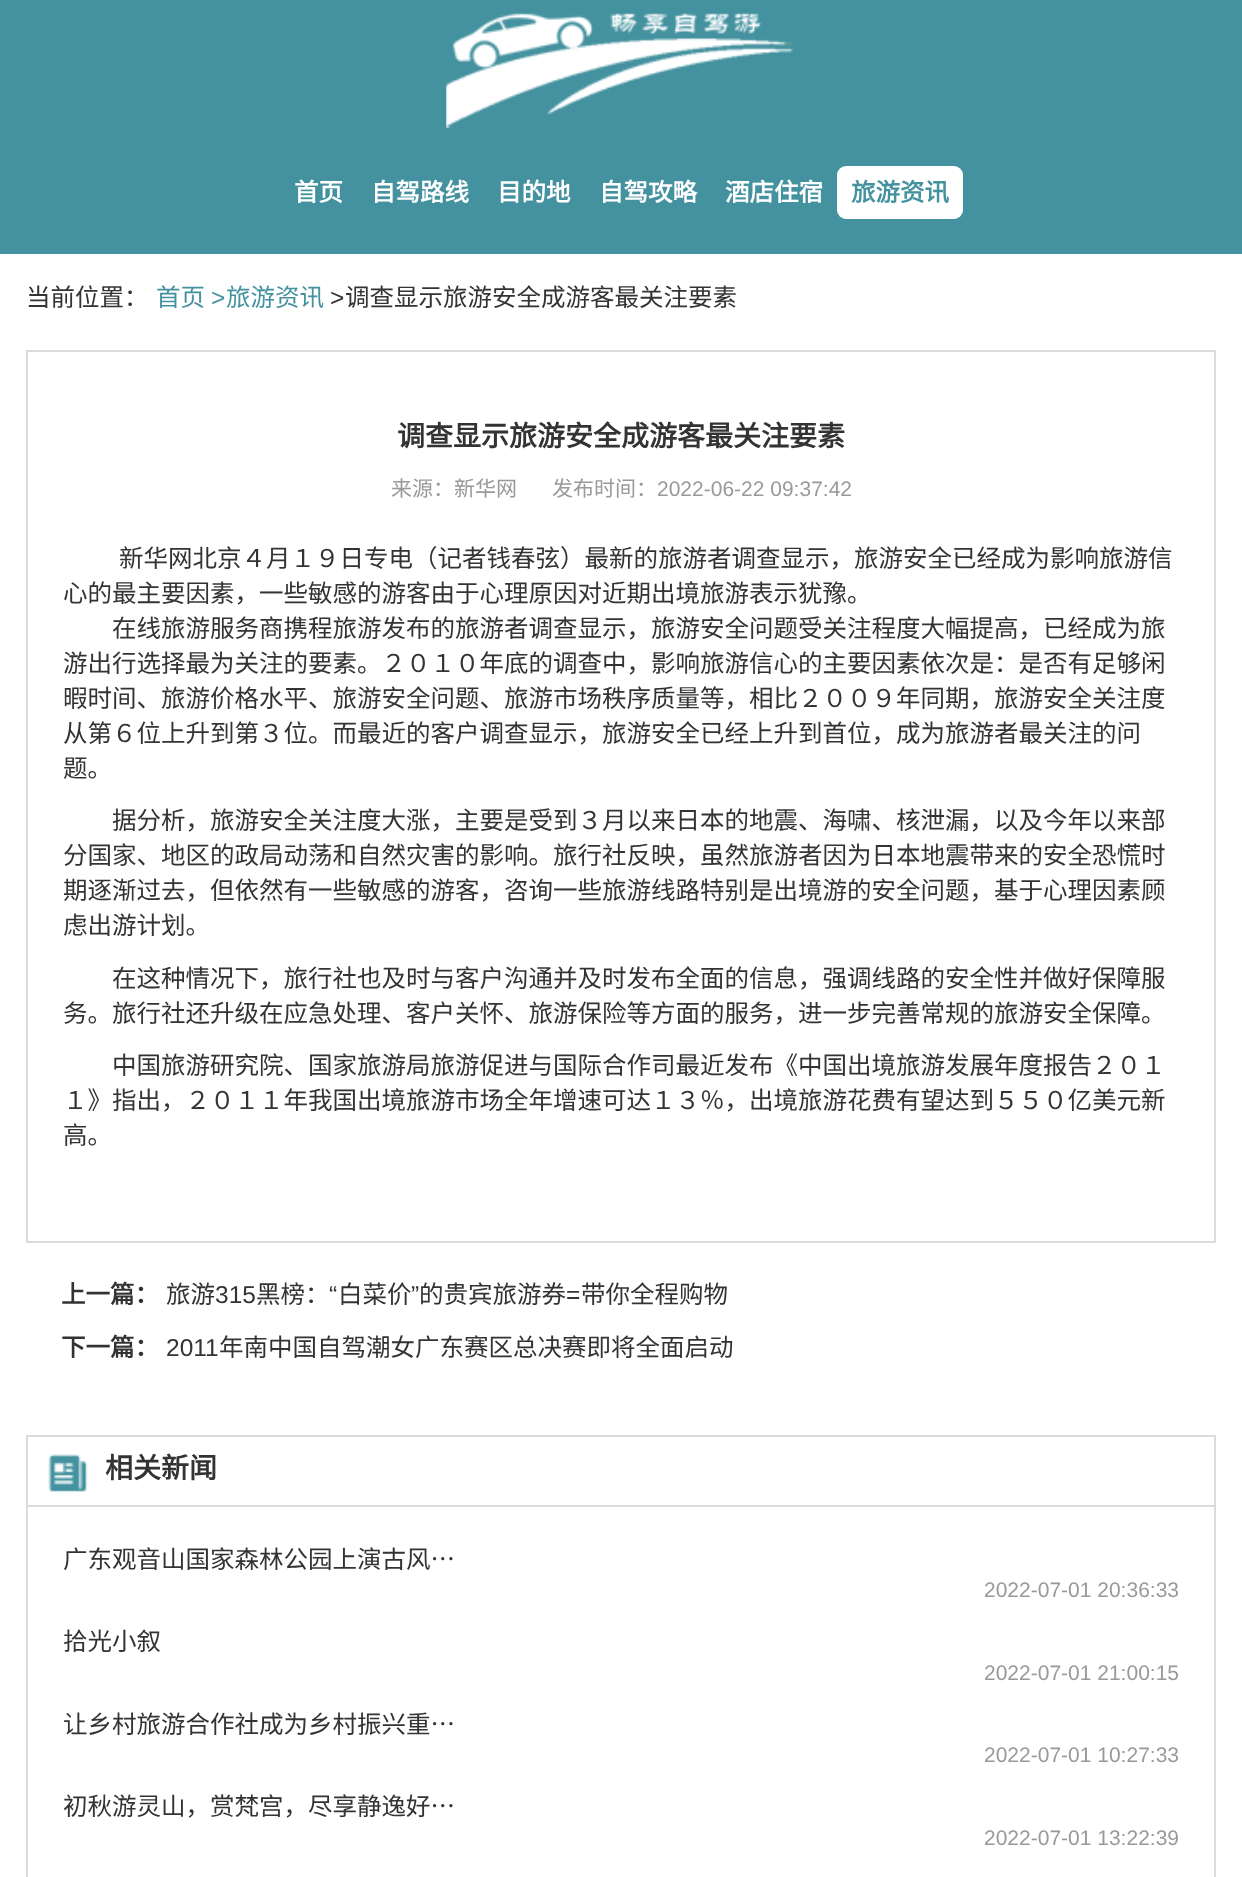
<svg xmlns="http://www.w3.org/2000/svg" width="1242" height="1877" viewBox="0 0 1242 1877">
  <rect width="100%" height="100%" fill="rgb(255,255,255)"/>
  <rect x="0" y="0" width="1242" height="254" fill="rgb(68,146,159)"/>
  <image x="446" y="13" width="348" height="116" href="pic1.png"/>
  <g font-family="Noto Sans CJK SC" font-size="24.5" font-weight="bold" fill="rgb(255,255,255)">
    <text x="294" y="201">首页</text>
    <text x="371" y="201">自驾路线</text>
    <text x="497" y="201">目的地</text>
    <text x="599" y="201">自驾攻略</text>
    <text x="725" y="201">酒店住宿</text>
  </g>
  <rect x="837" y="166" width="126" height="53" rx="9" fill="rgb(255,255,255)"/>
  <text x="851" y="201" font-family="Noto Sans CJK SC" font-size="24.5" font-weight="bold" fill="rgb(68,146,159)">旅游资讯</text>
  <text x="26" y="306" font-family="Noto Sans CJK SC" font-size="24.5" fill="rgb(51,51,51)">当前位置：</text>
  <text x="156" y="306" font-family="Noto Sans CJK SC" font-size="24.5" fill="rgb(68,146,159)">首页</text>
  <text x="211" y="306" font-family="Liberation Sans" font-size="24.5" fill="rgb(68,146,159)">&gt;</text>
  <text x="226" y="306" font-family="Noto Sans CJK SC" font-size="24.5" fill="rgb(68,146,159)">旅游资讯</text>
  <text x="330" y="306" font-family="Liberation Sans" font-size="24.5" fill="rgb(51,51,51)">&gt;</text>
  <text x="345" y="306" font-family="Noto Sans CJK SC" font-size="24.5" fill="rgb(51,51,51)">调查显示旅游安全成游客最关注要素</text>
  <rect x="27" y="351" width="1188" height="891" fill="none" stroke="rgb(219,219,219)" stroke-width="2"/>
  <text x="397" y="446" font-family="Noto Sans CJK SC" font-size="28" font-weight="bold" fill="rgb(51,51,51)">调查显示旅游安全成游客最关注要素</text>
  <g font-family="Noto Sans CJK SC" font-size="21" fill="rgb(153,153,153)">
    <text x="391" y="496">来源：新华网</text>
    <text x="552" y="496">发布时间：</text>
  </g>
  <text x="657" y="496" font-family="Liberation Sans" font-size="21" fill="rgb(153,153,153)">2022-06-22 09:37:42</text>
  <g font-family="Noto Sans CJK SC" font-size="24.5" fill="rgb(51,51,51)">
    <text x="119" y="567">新华网北京４月１９日专电（记者钱春弦）最新的旅游者调查显示，旅游安全已经成为影响旅游信</text>
    <text x="63" y="602">心的最主要因素，一些敏感的游客由于心理原因对近期出境旅游表示犹豫。</text>
    <text x="112" y="637">在线旅游服务商携程旅游发布的旅游者调查显示，旅游安全问题受关注程度大幅提高，已经成为旅</text>
    <text>
      <tspan x="63" y="672">游出行选择最为关注的要素。２０１０年底的调查中，影响旅游信心的主要因素依次是：是否有足够闲</tspan>
      <tspan x="63" y="707">暇时间、旅游价格水平、旅游安全问题、旅游市场秩序质量等，相比２００９年同期，旅游安全关注度</tspan>
      <tspan x="63" y="742">从第６位上升到第３位。而最近的客户调查显示，旅游安全已经上升到首位，成为旅游者最关注的问</tspan>
      <tspan x="63" y="777">题。</tspan>
    </text>
    <text x="112" y="829">据分析，旅游安全关注度大涨，主要是受到３月以来日本的地震、海啸、核泄漏，以及今年以来部</text>
    <text>
      <tspan x="63" y="864">分国家、地区的政局动荡和自然灾害的影响。旅行社反映，虽然旅游者因为日本地震带来的安全恐慌时</tspan>
      <tspan x="63" y="899">期逐渐过去，但依然有一些敏感的游客，咨询一些旅游线路特别是出境游的安全问题，基于心理因素顾</tspan>
      <tspan x="63" y="934">虑出游计划。</tspan>
    </text>
    <text x="112" y="987">在这种情况下，旅行社也及时与客户沟通并及时发布全面的信息，强调线路的安全性并做好保障服</text>
    <text x="63" y="1022">务。旅行社还升级在应急处理、客户关怀、旅游保险等方面的服务，进一步完善常规的旅游安全保障。</text>
    <text x="112" y="1074">中国旅游研究院、国家旅游局旅游促进与国际合作司最近发布《中国出境旅游发展年度报告２０１</text>
    <text>
      <tspan x="63" y="1109">１》指出，２０１１年我国出境旅游市场全年增速可达１３％，出境旅游花费有望达到５５０亿美元新</tspan>
      <tspan x="63" y="1144">高。</tspan>
    </text>
  </g>
  <text x="61" y="1303" font-family="Noto Sans CJK SC" font-size="24.5" font-weight="bold" fill="rgb(51,51,51)">上一篇：</text>
  <text x="166" y="1303" font-family="Noto Sans CJK SC" font-size="24.5" fill="rgb(51,51,51)">旅游</text>
  <text x="215" y="1303" font-family="Liberation Sans" font-size="24.5" fill="rgb(51,51,51)">315</text>
  <text x="256" y="1303" font-family="Noto Sans CJK SC" font-size="24.5" fill="rgb(51,51,51)">黑榜：</text>
  <text x="329" y="1303" font-family="Liberation Sans" font-size="24.5" fill="rgb(51,51,51)">“</text>
  <text x="338" y="1303" font-family="Noto Sans CJK SC" font-size="24.5" fill="rgb(51,51,51)">白菜价</text>
  <text x="411" y="1303" font-family="Liberation Sans" font-size="24.5" fill="rgb(51,51,51)">”</text>
  <g font-family="Noto Sans CJK SC" font-size="24.5" fill="rgb(51,51,51)">
    <text x="419" y="1303">的贵宾旅游券</text>
    <text x="581" y="1303">带你全程购物</text>
  </g>
  <text x="566" y="1303" font-family="Liberation Sans" font-size="24.5" fill="rgb(51,51,51)">=</text>
  <text x="61" y="1356" font-family="Noto Sans CJK SC" font-size="24.5" font-weight="bold" fill="rgb(51,51,51)">下一篇：</text>
  <text x="166" y="1356" font-family="Liberation Sans" font-size="24.5" fill="rgb(51,51,51)">2011</text>
  <text x="219" y="1356" font-family="Noto Sans CJK SC" font-size="24.5" fill="rgb(51,51,51)">年南中国自驾潮女广东赛区总决赛即将全面启动</text>
  <rect x="27" y="1436" width="1188" height="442" fill="none" stroke="rgb(219,219,219)" stroke-width="2"/>
  <rect x="28" y="1505" width="1187" height="2" fill="rgb(219,219,219)"/>
  <image x="48" y="1454" width="40" height="38" href="pic2.png"/>
  <text x="105" y="1478" font-family="Noto Sans CJK SC" font-size="28" font-weight="bold" fill="rgb(51,51,51)">相关新闻</text>
  <text x="63" y="1568" font-family="Noto Sans CJK SC" font-size="24.5" fill="rgb(51,51,51)">广东观音山国家森林公园上演古风…</text>
  <text x="984" y="1597" font-family="Liberation Sans" font-size="21" fill="rgb(153,153,153)">2022-07-01 20:36:33</text>
  <text x="63" y="1650" font-family="Noto Sans CJK SC" font-size="24.5" fill="rgb(51,51,51)">拾光小叙</text>
  <text x="984" y="1680" font-family="Liberation Sans" font-size="21" fill="rgb(153,153,153)">2022-07-01 21:00:15</text>
  <text x="63" y="1733" font-family="Noto Sans CJK SC" font-size="24.5" fill="rgb(51,51,51)">让乡村旅游合作社成为乡村振兴重…</text>
  <text x="984" y="1762" font-family="Liberation Sans" font-size="21" fill="rgb(153,153,153)">2022-07-01 10:27:33</text>
  <text x="63" y="1815" font-family="Noto Sans CJK SC" font-size="24.5" fill="rgb(51,51,51)">初秋游灵山，赏梵宫，尽享静逸好…</text>
  <text x="984" y="1845" font-family="Liberation Sans" font-size="21" fill="rgb(153,153,153)">2022-07-01 13:22:39</text>
</svg>
